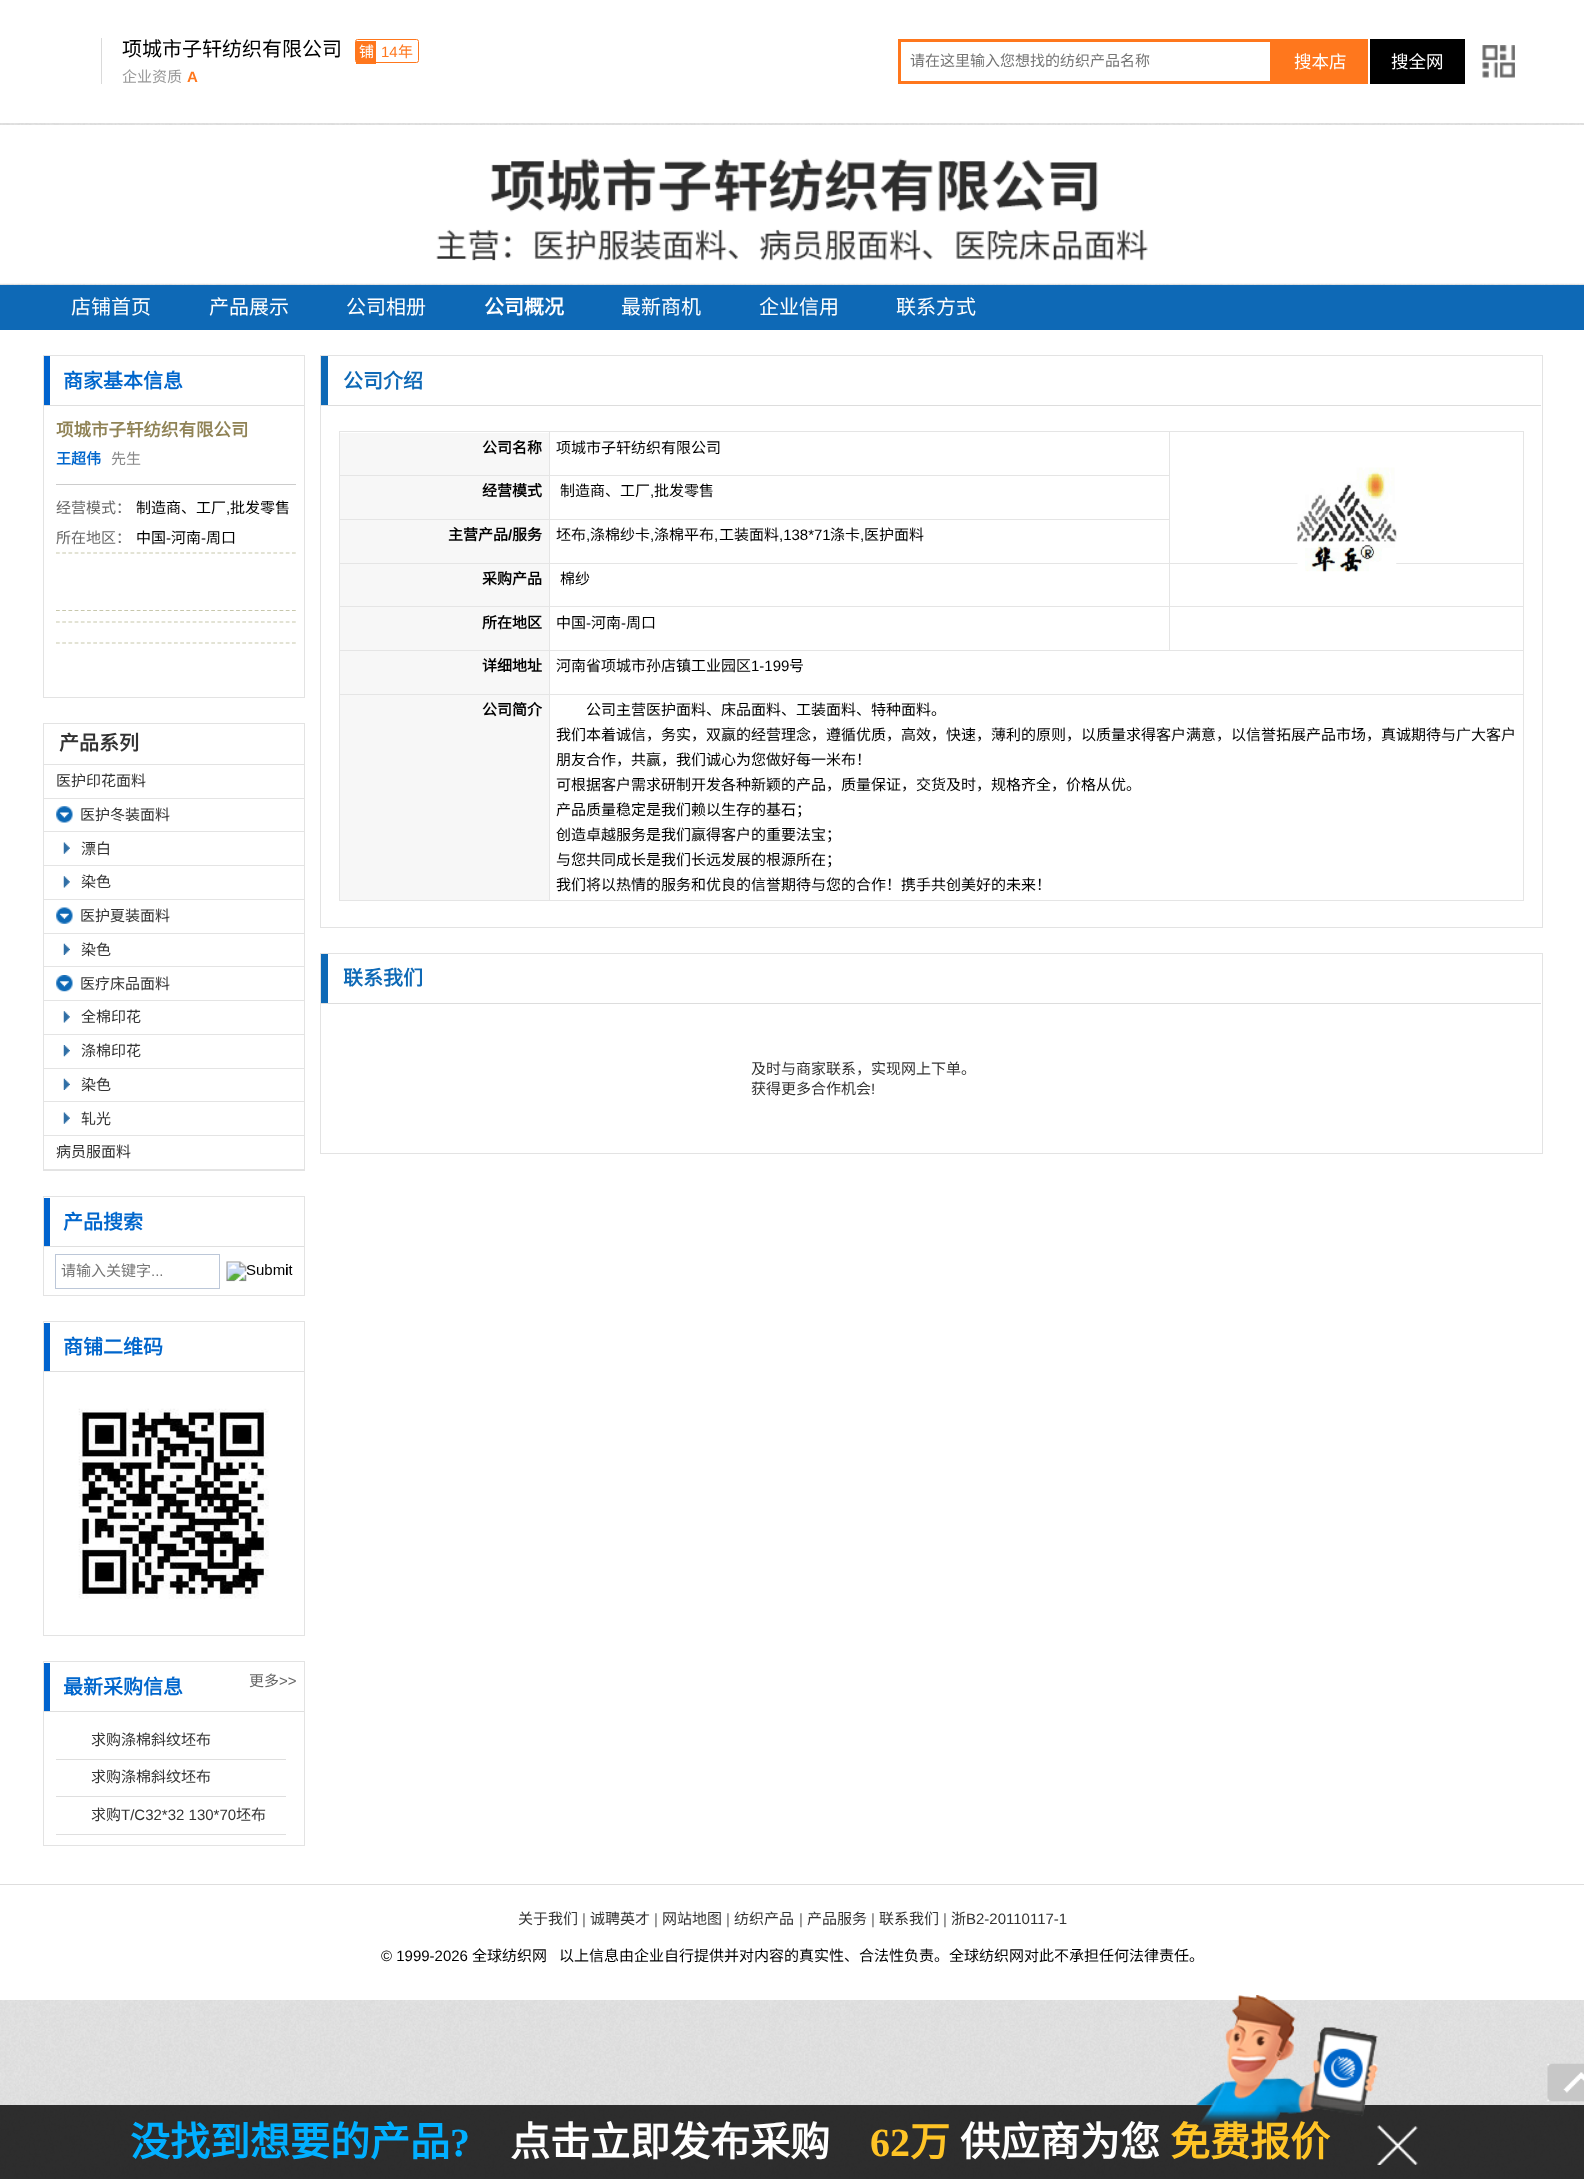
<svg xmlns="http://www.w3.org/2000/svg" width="1584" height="2179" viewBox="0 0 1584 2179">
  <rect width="100%" height="100%" fill="rgb(255,255,255)"/>
  <image x="0" y="123" width="1584" height="2056" href="pic1.png"/>
  <rect x="101" y="38" width="1" height="46" fill="rgb(218,218,218)"/>
  <text x="122" y="56" font-family="Noto Sans CJK SC" font-size="20" fill="rgb(0,0,0)">项城市子轩纺织有限公司</text>
  <rect x="355.5" y="39.5" width="63" height="23" rx="2" fill="none" stroke="rgb(255,119,29)"/>
  <rect x="356" y="41" width="20" height="23" fill="rgb(255,119,29)"/>
  <text x="359" y="57" font-family="Noto Sans CJK SC" font-size="15" fill="rgb(255,255,255)">铺</text>
  <text x="381" y="57" font-family="Liberation Sans" font-size="15" fill="rgb(255,119,29)">14</text>
  <text x="398" y="57" font-family="Noto Sans CJK SC" font-size="15" fill="rgb(255,119,29)">年</text>
  <text x="122" y="82" font-family="Noto Sans CJK SC" font-size="15" fill="rgb(153,153,153)">企业资质</text>
  <text x="187" y="82" font-family="Liberation Sans" font-size="15" font-weight="bold" fill="rgb(255,119,29)">A</text>
  <rect x="899.5" y="40.5" width="372" height="42" fill="none" stroke="rgb(255,119,29)" stroke-width="3"/>
  <text x="910" y="66" font-family="Noto Sans CJK SC" font-size="15" fill="rgb(117,117,117)">请在这里输入您想找的纺织产品名称</text>
  <rect x="1273" y="39" width="95" height="45" fill="rgb(255,119,29)"/>
  <text x="1294" y="68" font-family="Noto Sans CJK SC" font-size="17.5" fill="rgb(255,255,255)">搜本店</text>
  <rect x="1370" y="39" width="95" height="45" fill="rgb(0,0,0)"/>
  <text x="1391" y="68" font-family="Noto Sans CJK SC" font-size="17.5" fill="rgb(255,255,255)">搜全网</text>
  <image x="1482" y="45" width="33" height="33" href="pic2.png"/>
  <image x="0" y="125" width="1584" height="159" href="pic3.png"/>
  <rect x="0" y="285" width="1584" height="45" fill="rgb(14,105,182)"/>
  <g font-family="Noto Sans CJK SC" font-size="20" fill="rgb(255,255,255)">
    <text x="71" y="314">店铺首页</text>
    <text x="209" y="314">产品展示</text>
    <text x="346" y="314">公司相册</text>
  </g>
  <text x="484" y="314" font-family="Noto Sans CJK SC" font-size="20" font-weight="bold" fill="rgb(255,255,255)">公司概况</text>
  <g font-family="Noto Sans CJK SC" font-size="20" fill="rgb(255,255,255)">
    <text x="621" y="314">最新商机</text>
    <text x="759" y="314">企业信用</text>
    <text x="896" y="314">联系方式</text>
  </g>
  <rect x="0" y="330" width="1584" height="1554" fill="rgb(255,255,255)"/>
  <rect x="43.5" y="355.5" width="261" height="342" fill="none" stroke="rgb(227,227,227)"/>
  <rect x="44" y="405" width="260" height="1" fill="rgb(223,223,223)"/>
  <rect x="44" y="356" width="6" height="49" fill="rgb(0,99,206)"/>
  <text x="63" y="388" font-family="Noto Sans CJK SC" font-size="20" font-weight="bold" fill="rgb(0,102,204)">商家基本信息</text>
  <text x="56" y="436" font-family="Noto Sans CJK SC" font-size="17.5" font-weight="bold" fill="rgb(144,131,86)">项城市子轩纺织有限公司</text>
  <rect x="56" y="484" width="240" height="1" fill="rgb(204,204,204)"/>
  <text x="56" y="464" font-family="Noto Sans CJK SC" font-size="15" font-weight="bold" fill="rgb(0,102,204)">王超伟</text>
  <text x="111" y="464" font-family="Noto Sans CJK SC" font-size="15" fill="rgb(136,136,136)">先生</text>
  <text x="56" y="513" font-family="Noto Sans CJK SC" font-size="15" fill="rgb(102,102,102)">经营模式：</text>
  <text x="136" y="513" font-family="Noto Sans CJK SC" font-size="15" fill="rgb(0,0,0)">制造商、工厂</text>
  <text x="226" y="513" font-family="Liberation Sans" font-size="15" fill="rgb(0,0,0)">,</text>
  <text x="230" y="513" font-family="Noto Sans CJK SC" font-size="15" fill="rgb(0,0,0)">批发零售</text>
  <text x="56" y="543" font-family="Noto Sans CJK SC" font-size="15" fill="rgb(102,102,102)">所在地区：</text>
  <text x="136" y="543" font-family="Noto Sans CJK SC" font-size="15" fill="rgb(0,0,0)">中国</text>
  <text x="166" y="543" font-family="Liberation Sans" font-size="15" fill="rgb(0,0,0)">-</text>
  <text x="171" y="543" font-family="Noto Sans CJK SC" font-size="15" fill="rgb(0,0,0)">河南</text>
  <text x="201" y="543" font-family="Liberation Sans" font-size="15" fill="rgb(0,0,0)">-</text>
  <text x="206" y="543" font-family="Noto Sans CJK SC" font-size="15" fill="rgb(0,0,0)">周口</text>
  <path d="M56 553H296" fill="none" stroke="rgb(199,199,172)" stroke-width="1.2" stroke-dasharray="3.75 2.46"/>
  <path d="M56 610.5H296" fill="none" stroke="rgb(199,199,172)" stroke-width="1.2" stroke-dasharray="3.75 2.46"/>
  <path d="M56 622H296" fill="none" stroke="rgb(199,199,172)" stroke-width="1.2" stroke-dasharray="3.75 2.46"/>
  <path d="M56 643H296" fill="none" stroke="rgb(199,199,172)" stroke-width="1.2" stroke-dasharray="3.75 2.46"/>
  <rect x="43.5" y="723.5" width="261" height="447" fill="none" stroke="rgb(227,227,227)"/>
  <rect x="44" y="764" width="260" height="1" fill="rgb(227,227,227)"/>
  <text x="59" y="750" font-family="Noto Sans CJK SC" font-size="20" font-weight="bold" fill="rgb(51,51,51)">产品系列</text>
  <rect x="44" y="798" width="260" height="1" fill="rgb(228,228,228)"/>
  <text x="56" y="786" font-family="Noto Sans CJK SC" font-size="15" fill="rgb(51,51,51)">医护印花面料</text>
  <rect x="44" y="831" width="260" height="1" fill="rgb(228,228,228)"/>
  <image x="56" y="806" width="17" height="17" href="pic4.png"/>
  <text x="80" y="820" font-family="Noto Sans CJK SC" font-size="15" fill="rgb(51,51,51)">医护冬装面料</text>
  <image x="63" y="842" width="7" height="12" href="pic5.png"/>
  <rect x="44" y="865" width="260" height="1" fill="rgb(228,228,228)"/>
  <text x="81" y="854" font-family="Noto Sans CJK SC" font-size="15" fill="rgb(51,51,51)">漂白</text>
  <image x="63" y="876" width="7" height="12" href="pic6.png"/>
  <rect x="44" y="899" width="260" height="1" fill="rgb(228,228,228)"/>
  <text x="81" y="887" font-family="Noto Sans CJK SC" font-size="15" fill="rgb(51,51,51)">染色</text>
  <rect x="44" y="933" width="260" height="1" fill="rgb(228,228,228)"/>
  <image x="56" y="907" width="17" height="17" href="pic7.png"/>
  <text x="80" y="921" font-family="Noto Sans CJK SC" font-size="15" fill="rgb(51,51,51)">医护夏装面料</text>
  <image x="63" y="943" width="7" height="12" href="pic8.png"/>
  <rect x="44" y="966" width="260" height="1" fill="rgb(228,228,228)"/>
  <text x="81" y="955" font-family="Noto Sans CJK SC" font-size="15" fill="rgb(51,51,51)">染色</text>
  <rect x="44" y="1000" width="260" height="1" fill="rgb(228,228,228)"/>
  <image x="56" y="975" width="17" height="17" href="pic9.png"/>
  <text x="80" y="989" font-family="Noto Sans CJK SC" font-size="15" fill="rgb(51,51,51)">医疗床品面料</text>
  <image x="63" y="1011" width="7" height="12" href="pic6.png"/>
  <rect x="44" y="1034" width="260" height="1" fill="rgb(228,228,228)"/>
  <text x="81" y="1022" font-family="Noto Sans CJK SC" font-size="15" fill="rgb(51,51,51)">全棉印花</text>
  <image x="63" y="1045" width="7" height="12" href="pic10.png"/>
  <rect x="44" y="1068" width="260" height="1" fill="rgb(228,228,228)"/>
  <text x="81" y="1056" font-family="Noto Sans CJK SC" font-size="15" fill="rgb(51,51,51)">涤棉印花</text>
  <image x="63" y="1078" width="7" height="12" href="pic8.png"/>
  <rect x="44" y="1101" width="260" height="1" fill="rgb(228,228,228)"/>
  <text x="81" y="1090" font-family="Noto Sans CJK SC" font-size="15" fill="rgb(51,51,51)">染色</text>
  <image x="63" y="1112" width="7" height="12" href="pic5.png"/>
  <rect x="44" y="1135" width="260" height="1" fill="rgb(228,228,228)"/>
  <text x="81" y="1124" font-family="Noto Sans CJK SC" font-size="15" fill="rgb(51,51,51)">轧光</text>
  <rect x="44" y="1169" width="260" height="1" fill="rgb(228,228,228)"/>
  <text x="56" y="1157" font-family="Noto Sans CJK SC" font-size="15" fill="rgb(51,51,51)">病员服面料</text>
  <rect x="43.5" y="1196.5" width="261" height="99" fill="none" stroke="rgb(227,227,227)"/>
  <rect x="44" y="1246" width="260" height="1" fill="rgb(223,223,223)"/>
  <rect x="44" y="1198" width="6" height="48" fill="rgb(0,99,206)"/>
  <text x="63" y="1229" font-family="Noto Sans CJK SC" font-size="20" font-weight="bold" fill="rgb(0,102,204)">产品搜索</text>
  <rect x="55.5" y="1254.5" width="164" height="34" fill="none" stroke="rgb(188,199,216)"/>
  <text x="61" y="1276" font-family="Noto Sans CJK SC" font-size="15" fill="rgb(117,117,117)">请输入关键字</text>
  <text x="151" y="1276" font-family="Liberation Sans" font-size="15" fill="rgb(117,117,117)">...</text>
  <image x="226" y="1261" width="67" height="21" href="pic11.png"/>
  <text x="285" y="1275" font-family="Liberation Sans" font-size="15" fill="rgb(0,0,0)">i</text>
  <rect x="43.5" y="1321.5" width="261" height="314" fill="none" stroke="rgb(227,227,227)"/>
  <rect x="44" y="1371" width="260" height="1" fill="rgb(223,223,223)"/>
  <rect x="44" y="1323" width="6" height="48" fill="rgb(0,99,206)"/>
  <text x="63" y="1354" font-family="Noto Sans CJK SC" font-size="20" font-weight="bold" fill="rgb(0,102,204)">商铺二维码</text>
  <image x="78" y="1408" width="191" height="191" href="pic12.png"/>
  <rect x="43.5" y="1661.5" width="261" height="184" fill="none" stroke="rgb(227,227,227)"/>
  <rect x="44" y="1711" width="260" height="1" fill="rgb(223,223,223)"/>
  <rect x="44" y="1663" width="6" height="48" fill="rgb(0,99,206)"/>
  <text x="63" y="1694" font-family="Noto Sans CJK SC" font-size="20" font-weight="bold" fill="rgb(0,102,204)">最新采购信息</text>
  <text x="249" y="1686" font-family="Noto Sans CJK SC" font-size="15" fill="rgb(102,102,102)">更多</text>
  <text x="279" y="1686" font-family="Liberation Sans" font-size="15" fill="rgb(102,102,102)">&gt;&gt;</text>
  <rect x="56" y="1759" width="230" height="1" fill="rgb(223,223,223)"/>
  <text x="91" y="1745" font-family="Noto Sans CJK SC" font-size="15" fill="rgb(51,51,51)">求购涤棉斜纹坯布</text>
  <rect x="56" y="1796" width="230" height="1" fill="rgb(223,223,223)"/>
  <text x="91" y="1782" font-family="Noto Sans CJK SC" font-size="15" fill="rgb(51,51,51)">求购涤棉斜纹坯布</text>
  <rect x="56" y="1834" width="230" height="1" fill="rgb(223,223,223)"/>
  <text x="91" y="1820" font-family="Noto Sans CJK SC" font-size="15" fill="rgb(51,51,51)">求购</text>
  <text x="121" y="1820" font-family="Liberation Sans" font-size="15" fill="rgb(51,51,51)">T/C32*32 130*70</text>
  <text x="236" y="1820" font-family="Noto Sans CJK SC" font-size="15" fill="rgb(51,51,51)">坯布</text>
  <rect x="320.5" y="355.5" width="1222" height="572" fill="none" stroke="rgb(227,227,227)"/>
  <rect x="321" y="405" width="1220" height="1" fill="rgb(221,221,221)"/>
  <rect x="321" y="356" width="7" height="49" fill="rgb(14,105,182)"/>
  <text x="343" y="388" font-family="Noto Sans CJK SC" font-size="20" font-weight="bold" fill="rgb(14,105,182)">公司介绍</text>
  <rect x="339" y="431" width="1185" height="1" fill="rgb(229,229,229)"/>
  <rect x="1523" y="431" width="1" height="470" fill="rgb(229,229,229)"/>
  <rect x="339" y="900" width="1185" height="1" fill="rgb(229,229,229)"/>
  <rect x="339" y="431" width="1" height="470" fill="rgb(229,229,229)"/>
  <rect x="340" y="433" width="209" height="42" fill="rgb(247,247,247)"/>
  <text x="482" y="453" font-family="Noto Sans CJK SC" font-size="15" font-weight="bold" fill="rgb(0,0,0)">公司名称</text>
  <rect x="549" y="475" width="621" height="1" fill="rgb(229,229,229)"/>
  <rect x="549" y="519" width="621" height="1" fill="rgb(229,229,229)"/>
  <rect x="549" y="563" width="975" height="1" fill="rgb(229,229,229)"/>
  <rect x="340" y="564" width="209" height="86" fill="rgb(247,247,247)"/>
  <rect x="549" y="650" width="975" height="1" fill="rgb(229,229,229)"/>
  <rect x="1169" y="606" width="1" height="45" fill="rgb(229,229,229)"/>
  <rect x="549" y="694" width="975" height="1" fill="rgb(229,229,229)"/>
  <rect x="549" y="694" width="1" height="207" fill="rgb(229,229,229)"/>
  <rect x="339" y="694" width="211" height="1" fill="rgb(229,229,229)"/>
  <rect x="549" y="650" width="1" height="45" fill="rgb(229,229,229)"/>
  <rect x="339" y="650" width="211" height="1" fill="rgb(229,229,229)"/>
  <rect x="549" y="606" width="1" height="45" fill="rgb(229,229,229)"/>
  <rect x="339" y="606" width="1185" height="1" fill="rgb(229,229,229)"/>
  <rect x="549" y="563" width="1" height="45" fill="rgb(229,229,229)"/>
  <rect x="339" y="563" width="211" height="1" fill="rgb(229,229,229)"/>
  <rect x="549" y="519" width="1" height="45" fill="rgb(229,229,229)"/>
  <rect x="339" y="519" width="211" height="1" fill="rgb(229,229,229)"/>
  <rect x="549" y="475" width="1" height="45" fill="rgb(229,229,229)"/>
  <rect x="339" y="475" width="211" height="1" fill="rgb(229,229,229)"/>
  <rect x="549" y="431" width="1" height="45" fill="rgb(229,229,229)"/>
  <text x="556" y="453" font-family="Noto Sans CJK SC" font-size="15" fill="rgb(0,0,0)">项城市子轩纺织有限公司</text>
  <rect x="1169" y="431" width="1" height="177" fill="rgb(229,229,229)"/>
  <image x="1297" y="467" width="100" height="105" href="pic13.png"/>
  <rect x="340" y="476" width="209" height="43" fill="rgb(247,247,247)"/>
  <text x="482" y="496" font-family="Noto Sans CJK SC" font-size="15" font-weight="bold" fill="rgb(0,0,0)">经营模式</text>
  <text x="560" y="496" font-family="Noto Sans CJK SC" font-size="15" fill="rgb(0,0,0)">制造商、工厂</text>
  <text x="650" y="496" font-family="Liberation Sans" font-size="15" fill="rgb(0,0,0)">,</text>
  <text x="654" y="496" font-family="Noto Sans CJK SC" font-size="15" fill="rgb(0,0,0)">批发零售</text>
  <rect x="340" y="520" width="209" height="43" fill="rgb(247,247,247)"/>
  <text x="448" y="540" font-family="Noto Sans CJK SC" font-size="15" font-weight="bold" fill="rgb(0,0,0)">主营产品</text>
  <text x="508" y="540" font-family="Liberation Sans" font-size="15" font-weight="bold" fill="rgb(0,0,0)">/</text>
  <text x="512" y="540" font-family="Noto Sans CJK SC" font-size="15" font-weight="bold" fill="rgb(0,0,0)">服务</text>
  <text x="556" y="540" font-family="Noto Sans CJK SC" font-size="15" fill="rgb(0,0,0)">坯布</text>
  <text x="586" y="540" font-family="Liberation Sans" font-size="15" fill="rgb(0,0,0)">,</text>
  <text x="590" y="540" font-family="Noto Sans CJK SC" font-size="15" fill="rgb(0,0,0)">涤棉纱卡</text>
  <text x="650" y="540" font-family="Liberation Sans" font-size="15" fill="rgb(0,0,0)">,</text>
  <text x="654" y="540" font-family="Noto Sans CJK SC" font-size="15" fill="rgb(0,0,0)">涤棉平布</text>
  <text x="714" y="540" font-family="Liberation Sans" font-size="15" fill="rgb(0,0,0)">,</text>
  <text x="719" y="540" font-family="Noto Sans CJK SC" font-size="15" fill="rgb(0,0,0)">工装面料</text>
  <text x="779" y="540" font-family="Liberation Sans" font-size="15" fill="rgb(0,0,0)">,138*71</text>
  <text x="830" y="540" font-family="Noto Sans CJK SC" font-size="15" fill="rgb(0,0,0)">涤卡</text>
  <text x="860" y="540" font-family="Liberation Sans" font-size="15" fill="rgb(0,0,0)">,</text>
  <text x="864" y="540" font-family="Noto Sans CJK SC" font-size="15" fill="rgb(0,0,0)">医护面料</text>
  <text x="482" y="584" font-family="Noto Sans CJK SC" font-size="15" font-weight="bold" fill="rgb(0,0,0)">采购产品</text>
  <text x="560" y="584" font-family="Noto Sans CJK SC" font-size="15" fill="rgb(0,0,0)">棉纱</text>
  <text x="482" y="628" font-family="Noto Sans CJK SC" font-size="15" font-weight="bold" fill="rgb(0,0,0)">所在地区</text>
  <text x="556" y="628" font-family="Noto Sans CJK SC" font-size="15" fill="rgb(0,0,0)">中国</text>
  <text x="586" y="628" font-family="Liberation Sans" font-size="15" fill="rgb(0,0,0)">-</text>
  <text x="591" y="628" font-family="Noto Sans CJK SC" font-size="15" fill="rgb(0,0,0)">河南</text>
  <text x="621" y="628" font-family="Liberation Sans" font-size="15" fill="rgb(0,0,0)">-</text>
  <text x="626" y="628" font-family="Noto Sans CJK SC" font-size="15" fill="rgb(0,0,0)">周口</text>
  <rect x="340" y="651" width="209" height="43" fill="rgb(247,247,247)"/>
  <text x="482" y="671" font-family="Noto Sans CJK SC" font-size="15" font-weight="bold" fill="rgb(0,0,0)">详细地址</text>
  <text x="556" y="671" font-family="Noto Sans CJK SC" font-size="15" fill="rgb(0,0,0)">河南省项城市孙店镇工业园区</text>
  <text x="751" y="671" font-family="Liberation Sans" font-size="15" fill="rgb(0,0,0)">1-199</text>
  <text x="789" y="671" font-family="Noto Sans CJK SC" font-size="15" fill="rgb(0,0,0)">号</text>
  <rect x="340" y="695" width="209" height="205" fill="rgb(247,247,247)"/>
  <text x="482" y="715" font-family="Noto Sans CJK SC" font-size="15" font-weight="bold" fill="rgb(0,0,0)">公司简介</text>
  <g font-family="Noto Sans CJK SC" font-size="15" fill="rgb(0,0,0)">
    <text x="586" y="715">公司主营医护面料、床品面料、工装面料、特种面料。</text>
    <text>
      <tspan x="556" y="740">我们本着诚信，务实，双赢的经营理念，遵循优质，高效，快速，薄利的原则，以质量求得客户满意，以信誉拓展产品市场，真诚期待与广大客户</tspan>
      <tspan x="556" y="765">朋友合作，共赢，我们诚心为您做好每一米布！</tspan>
      <tspan x="556" y="790">可根据客户需求研制开发各种新颖的产品，质量保证，交货及时，规格齐全，价格从优。</tspan>
      <tspan x="556" y="815">产品质量稳定是我们赖以生存的基石；</tspan>
      <tspan x="556" y="840">创造卓越服务是我们赢得客户的重要法宝；</tspan>
      <tspan x="556" y="865">与您共同成长是我们长远发展的根源所在；</tspan>
      <tspan x="556" y="890">我们将以热情的服务和优良的信誉期待与您的合作！携手共创美好的未来！</tspan>
    </text>
  </g>
  <rect x="320.5" y="953.5" width="1222" height="200" fill="none" stroke="rgb(227,227,227)"/>
  <rect x="321" y="1003" width="1220" height="1" fill="rgb(221,221,221)"/>
  <rect x="321" y="954" width="7" height="49" fill="rgb(14,105,182)"/>
  <text x="343" y="985" font-family="Noto Sans CJK SC" font-size="20" font-weight="bold" fill="rgb(14,105,182)">联系我们</text>
  <g font-family="Noto Sans CJK SC" font-size="15" fill="rgb(51,51,51)">
    <text>
      <tspan x="751" y="1074">及时与商家联系，实现网上下单。</tspan>
      <tspan x="751" y="1094">获得更多合作机会</tspan>
    </text>
  </g>
  <text x="871" y="1094" font-family="Liberation Sans" font-size="15" fill="rgb(51,51,51)">!</text>
  <rect x="0" y="1885" width="1584" height="115" fill="rgb(255,255,255)"/>
  <rect x="0" y="1884" width="1584" height="1" fill="rgb(222,222,222)"/>
  <text x="518" y="1924" font-family="Noto Sans CJK SC" font-size="15" fill="rgb(51,51,51)">关于我们</text>
  <text x="582" y="1924" font-family="Liberation Sans" font-size="15" fill="rgb(102,102,102)">|</text>
  <text x="590" y="1924" font-family="Noto Sans CJK SC" font-size="15" fill="rgb(51,51,51)">诚聘英才</text>
  <text x="654" y="1924" font-family="Liberation Sans" font-size="15" fill="rgb(102,102,102)">|</text>
  <text x="662" y="1924" font-family="Noto Sans CJK SC" font-size="15" fill="rgb(51,51,51)">网站地图</text>
  <text x="726" y="1924" font-family="Liberation Sans" font-size="15" fill="rgb(102,102,102)">|</text>
  <text x="734" y="1924" font-family="Noto Sans CJK SC" font-size="15" fill="rgb(51,51,51)">纺织产品</text>
  <text x="799" y="1924" font-family="Liberation Sans" font-size="15" fill="rgb(102,102,102)">|</text>
  <text x="807" y="1924" font-family="Noto Sans CJK SC" font-size="15" fill="rgb(51,51,51)">产品服务</text>
  <text x="871" y="1924" font-family="Liberation Sans" font-size="15" fill="rgb(102,102,102)">|</text>
  <text x="879" y="1924" font-family="Noto Sans CJK SC" font-size="15" fill="rgb(51,51,51)">联系我们</text>
  <text x="943" y="1924" font-family="Liberation Sans" font-size="15" fill="rgb(102,102,102)">|</text>
  <text x="951" y="1924" font-family="Noto Sans CJK SC" font-size="15" fill="rgb(51,51,51)">浙</text>
  <text x="966" y="1924" font-family="Liberation Sans" font-size="15" fill="rgb(51,51,51)">B2-20110117-1</text>
  <text x="381" y="1961" font-family="Liberation Sans" font-size="15" fill="rgb(0,0,0)">© 1999-2026</text>
  <g font-family="Noto Sans CJK SC" font-size="15" fill="rgb(0,0,0)">
    <text x="472" y="1961">全球纺织网</text>
    <text x="559" y="1961">以上信息由企业自行提供并对内容的真实性、合法性负责。全球纺织网对此不承担任何法律责任。</text>
  </g>
  <image x="1547" y="2063" width="37" height="39" href="pic14.png"/>
  <rect x="0" y="2105" width="1584" height="74" fill="rgba(0,0,0,0.8)"/>
  <text x="1170" y="2156" font-family="Noto Sans CJK SC" font-size="40" font-weight="bold" fill="rgb(255,196,38)">免费报价</text>
  <image x="1196" y="1995" width="182" height="130" href="pic15.png"/>
  <text x="130" y="2156" font-family="Noto Sans CJK SC" font-size="40" font-weight="bold" fill="rgb(1,175,255)">没找到想要的产品</text>
  <text x="450" y="2156" font-family="Liberation Serif" font-size="40" font-weight="bold" fill="rgb(1,175,255)">?</text>
  <text x="510" y="2156" font-family="Noto Sans CJK SC" font-size="40" font-weight="bold" fill="rgb(255,255,255)">点击立即发布采购</text>
  <text x="870" y="2156" font-family="Liberation Serif" font-size="40" font-weight="bold" fill="rgb(255,196,38)">62</text>
  <text x="910" y="2156" font-family="Noto Sans CJK SC" font-size="40" font-weight="bold" fill="rgb(255,196,38)">万</text>
  <text x="960" y="2156" font-family="Noto Sans CJK SC" font-size="40" font-weight="bold" fill="rgb(255,255,255)">供应商为您</text>
  <image x="1377" y="2125" width="41" height="40" href="pic16.png"/>
</svg>
